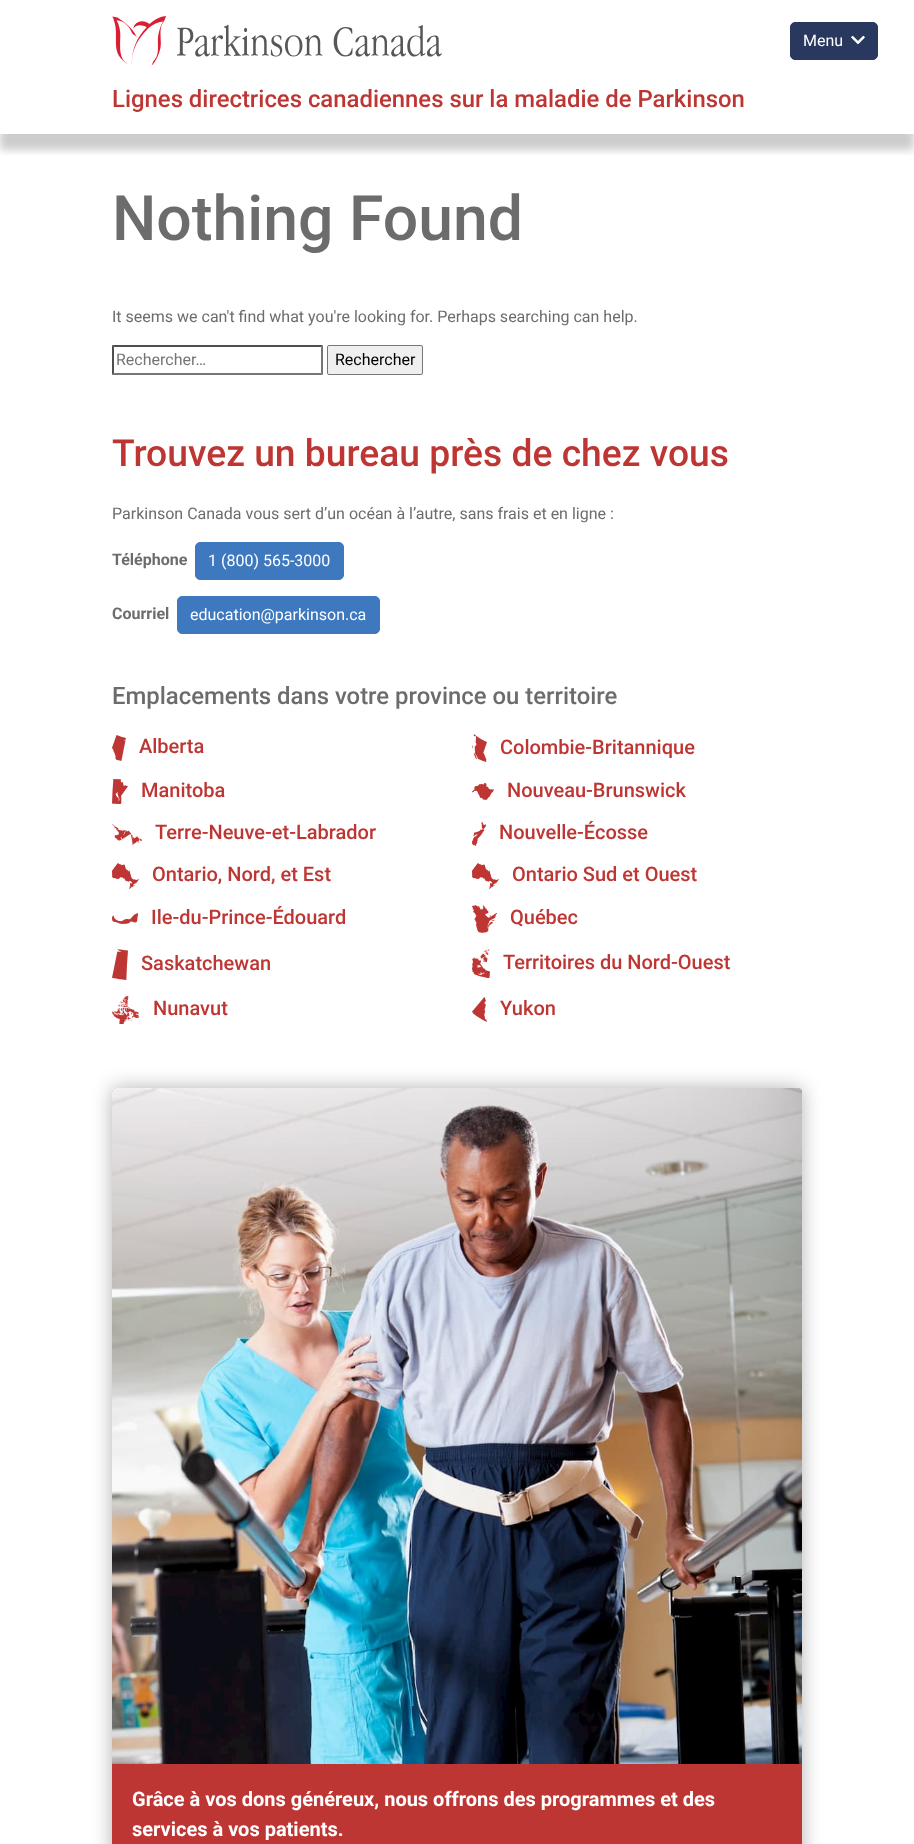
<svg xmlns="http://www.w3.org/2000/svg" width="914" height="1844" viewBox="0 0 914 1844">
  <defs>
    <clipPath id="clip1"><rect x="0" y="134" width="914" height="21"/></clipPath>
  </defs>
  <rect width="100%" height="100%" fill="rgb(255,255,255)"/>
  <rect x="790.5" y="22.5" width="87" height="37" rx="4.5" fill="rgb(40,56,94)" stroke="rgb(40,56,94)"/>
  <text x="803" y="46" font-family="Roboto" font-size="16" fill="rgb(255,255,255)">Menu</text>
  <image x="851" y="35" width="14" height="10" href="pic1.png"/>
  <image x="112" y="16" width="330" height="50" href="pic2.png"/>
  <g clip-path="url(#clip1)">
    <rect x="0" y="82" width="914" height="68" fill="rgba(0,0,0,0.2)" filter="blur(4px)"/>
  </g>
  <text x="112" y="107" font-family="Roboto" font-size="23.9" font-weight="500" fill="rgb(190,54,51)">Lignes directrices canadiennes sur la maladie de Parkinson</text>
  <text x="112" y="240" font-family="Roboto" font-size="62.5" font-weight="500" fill="rgb(108,108,108)">Nothing Found</text>
  <text x="112" y="322" font-family="Roboto" font-size="16" fill="rgb(108,108,108)">It seems we can't find what you're looking for. Perhaps searching can help.</text>
  <path d="M112 345H323L321 347H114Z" fill="rgb(79,79,79)"/>
  <path d="M323 345V375L321 373V347Z" fill="rgb(118,118,118)"/>
  <path d="M323 375H112L114 373H321Z" fill="rgb(118,118,118)"/>
  <path d="M112 375V345L114 347V373Z" fill="rgb(79,79,79)"/>
  <text x="116" y="365" font-family="Roboto" font-size="16" fill="rgb(117,117,117)">Rechercher…</text>
  <rect x="327.5" y="345.5" width="95" height="29" rx="1.5" fill="rgb(239,239,239)" stroke="rgb(118,118,118)"/>
  <text x="335" y="365" font-family="Roboto" font-size="16" fill="rgb(0,0,0)">Rechercher</text>
  <text x="112" y="466" font-family="Roboto" font-size="37.25" font-weight="500" fill="rgb(190,54,51)">Trouvez un bureau près de chez vous</text>
  <text x="112" y="519" font-family="Roboto" font-size="16" fill="rgb(108,108,108)">Parkinson Canada vous sert d’un océan à l’autre, sans frais et en ligne :</text>
  <text x="112" y="565" font-family="Roboto" font-size="16" font-weight="bold" fill="rgb(108,108,108)">Téléphone</text>
  <rect x="195.5" y="542.5" width="148" height="37" rx="4.5" fill="rgb(62,120,190)" stroke="rgb(62,120,190)"/>
  <text x="208" y="566" font-family="Roboto" font-size="16" fill="rgb(255,255,255)">1 (800) 565-3000</text>
  <text x="112" y="619" font-family="Roboto" font-size="16" font-weight="bold" fill="rgb(108,108,108)">Courriel</text>
  <rect x="177.5" y="596.5" width="202" height="37" rx="4.5" fill="rgb(62,120,190)" stroke="rgb(62,120,190)"/>
  <text x="190" y="620" font-family="Roboto" font-size="16" fill="rgb(255,255,255)">education@parkinson.ca</text>
  <text x="112" y="704" font-family="Roboto" font-size="23.9" font-weight="500" fill="rgb(108,108,108)">Emplacements dans votre province ou territoire</text>
  <image x="112" y="735" width="14" height="26" href="pic3.png"/>
  <text x="139" y="753" font-family="Roboto" font-size="20" font-weight="500" fill="rgb(190,54,51)">Alberta</text>
  <image x="472" y="734" width="15" height="28" href="pic4.png"/>
  <text x="500" y="754" font-family="Roboto" font-size="20" font-weight="500" fill="rgb(190,54,51)">Colombie-Britannique</text>
  <image x="112" y="779" width="16" height="25" href="pic5.png"/>
  <text x="141" y="797" font-family="Roboto" font-size="20" font-weight="500" fill="rgb(190,54,51)">Manitoba</text>
  <image x="472" y="783" width="22" height="17" href="pic6.png"/>
  <text x="507" y="797" font-family="Roboto" font-size="20" font-weight="500" fill="rgb(190,54,51)">Nouveau-Brunswick</text>
  <image x="112" y="824" width="30" height="21" href="pic7.png"/>
  <text x="155" y="839" font-family="Roboto" font-size="20" font-weight="500" fill="rgb(190,54,51)">Terre-Neuve-et-Labrador</text>
  <image x="472" y="822" width="14" height="24" href="pic8.png"/>
  <text x="499" y="839" font-family="Roboto" font-size="20" font-weight="500" fill="rgb(190,54,51)">Nouvelle-Écosse</text>
  <image x="112" y="863" width="27" height="26" href="pic9.png"/>
  <text x="152" y="881" font-family="Roboto" font-size="20" font-weight="500" fill="rgb(190,54,51)">Ontario, Nord, et Est</text>
  <image x="472" y="863" width="27" height="26" href="pic9.png"/>
  <text x="512" y="881" font-family="Roboto" font-size="20" font-weight="500" fill="rgb(190,54,51)">Ontario Sud et Ouest</text>
  <image x="112" y="913" width="26" height="11" href="pic10.png"/>
  <text x="151" y="924" font-family="Roboto" font-size="20" font-weight="500" fill="rgb(190,54,51)">Ile-du-Prince-Édouard</text>
  <image x="472" y="905" width="25" height="28" href="pic11.png"/>
  <text x="510" y="924" font-family="Roboto" font-size="20" font-weight="500" fill="rgb(190,54,51)">Québec</text>
  <image x="112" y="949" width="16" height="31" href="pic12.png"/>
  <text x="141" y="970" font-family="Roboto" font-size="20" font-weight="500" fill="rgb(190,54,51)">Saskatchewan</text>
  <image x="472" y="949" width="18" height="29" href="pic13.png"/>
  <text x="503" y="969" font-family="Roboto" font-size="20" font-weight="500" fill="rgb(190,54,51)">Territoires du Nord-Ouest</text>
  <image x="112" y="996" width="28" height="28" href="pic14.png"/>
  <text x="153" y="1015" font-family="Roboto" font-size="20" font-weight="500" fill="rgb(190,54,51)">Nunavut</text>
  <image x="472" y="997" width="15" height="25" href="pic15.png"/>
  <text x="500" y="1015" font-family="Roboto" font-size="20" font-weight="500" fill="rgb(190,54,51)">Yukon</text>
  <rect x="112" y="1088" width="690" height="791" rx="5" fill="rgba(0,0,0,0.3)" filter="blur(10px)"/>
  <path d="M117 1088H797C800 1088 802 1090 802 1093V1844H112V1093C112 1090 114 1088 117 1088Z" fill="rgb(190,54,51)"/>
  <image x="112" y="1088" width="690" height="676" href="pic16.png"/>
  <g font-family="Roboto" font-size="20" font-weight="bold" fill="rgb(255,255,255)">
    <text>
      <tspan x="132" y="1806">Grâce à vos dons généreux, nous offrons des programmes et des</tspan>
      <tspan x="132" y="1836">services à vos patients.</tspan>
    </text>
  </g>
</svg>
